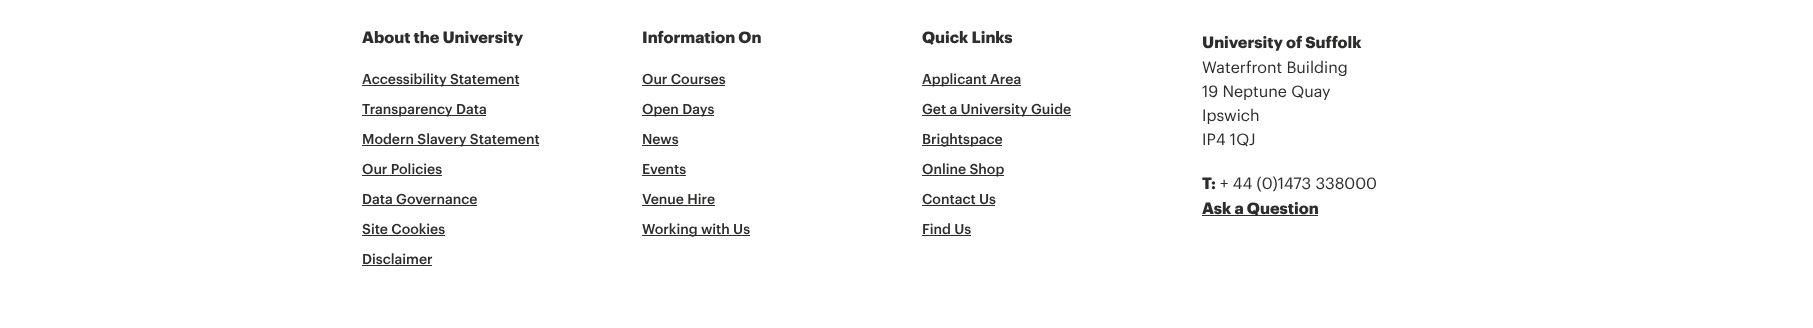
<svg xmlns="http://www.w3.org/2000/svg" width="1813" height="328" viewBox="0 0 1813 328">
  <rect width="100%" height="100%" fill="rgb(255,255,255)"/>
  <text x="362" y="43" font-family="Graphik" font-size="16" font-weight="bold" fill="rgb(45,45,43)">About the University</text>
  <rect x="362" y="85" width="157" height="1" fill="rgb(45,45,43)"/>
  <text x="362" y="84" font-family="Graphik" font-size="14" font-weight="500" fill="rgb(45,45,43)">Accessibility Statement</text>
  <rect x="362" y="115" width="124" height="1" fill="rgb(45,45,43)"/>
  <text x="362" y="114" font-family="Graphik" font-size="14" font-weight="500" fill="rgb(45,45,43)">Transparency Data</text>
  <rect x="362" y="145" width="177" height="1" fill="rgb(45,45,43)"/>
  <g font-family="Graphik" font-size="14" font-weight="500" fill="rgb(45,45,43)">
    <text x="362" y="144">Modern Slavery Statement</text>
    <text x="362" y="174">Our Policies</text>
  </g>
  <rect x="362" y="175" width="80" height="1" fill="rgb(45,45,43)"/>
  <text x="362" y="204" font-family="Graphik" font-size="14" font-weight="500" fill="rgb(45,45,43)">Data Governance</text>
  <rect x="362" y="205" width="115" height="1" fill="rgb(45,45,43)"/>
  <text x="362" y="234" font-family="Graphik" font-size="14" font-weight="500" fill="rgb(45,45,43)">Site Cookies</text>
  <rect x="362" y="235" width="83" height="1" fill="rgb(45,45,43)"/>
  <text x="362" y="264" font-family="Graphik" font-size="14" font-weight="500" fill="rgb(45,45,43)">Disclaimer</text>
  <rect x="362" y="265" width="70" height="1" fill="rgb(45,45,43)"/>
  <text x="642" y="43" font-family="Graphik" font-size="16" font-weight="bold" fill="rgb(45,45,43)">Information On</text>
  <text x="642" y="84" font-family="Graphik" font-size="14" font-weight="500" fill="rgb(45,45,43)">Our Courses</text>
  <rect x="642" y="85" width="83" height="1" fill="rgb(45,45,43)"/>
  <rect x="642" y="115" width="72" height="1" fill="rgb(45,45,43)"/>
  <g font-family="Graphik" font-size="14" font-weight="500" fill="rgb(45,45,43)">
    <text x="642" y="114">Open Days</text>
    <text x="642" y="144">News</text>
  </g>
  <rect x="642" y="145" width="36" height="1" fill="rgb(45,45,43)"/>
  <text x="642" y="174" font-family="Graphik" font-size="14" font-weight="500" fill="rgb(45,45,43)">Events</text>
  <rect x="642" y="175" width="44" height="1" fill="rgb(45,45,43)"/>
  <text x="642" y="204" font-family="Graphik" font-size="14" font-weight="500" fill="rgb(45,45,43)">Venue Hire</text>
  <rect x="642" y="205" width="73" height="1" fill="rgb(45,45,43)"/>
  <rect x="642" y="235" width="108" height="1" fill="rgb(45,45,43)"/>
  <text x="642" y="234" font-family="Graphik" font-size="14" font-weight="500" fill="rgb(45,45,43)">Working with Us</text>
  <text x="922" y="43" font-family="Graphik" font-size="16" font-weight="bold" fill="rgb(45,45,43)">Quick Links</text>
  <rect x="922" y="85" width="99" height="1" fill="rgb(45,45,43)"/>
  <text x="922" y="84" font-family="Graphik" font-size="14" font-weight="500" fill="rgb(45,45,43)">Applicant Area</text>
  <rect x="922" y="115" width="149" height="1" fill="rgb(45,45,43)"/>
  <text x="922" y="114" font-family="Graphik" font-size="14" font-weight="500" fill="rgb(45,45,43)">Get a University Guide</text>
  <rect x="922" y="145" width="80" height="1" fill="rgb(45,45,43)"/>
  <text x="922" y="144" font-family="Graphik" font-size="14" font-weight="500" fill="rgb(45,45,43)">Brightspace</text>
  <rect x="922" y="175" width="82" height="1" fill="rgb(45,45,43)"/>
  <g font-family="Graphik" font-size="14" font-weight="500" fill="rgb(45,45,43)">
    <text x="922" y="174">Online Shop</text>
    <text x="922" y="204">Contact Us</text>
  </g>
  <rect x="922" y="205" width="73" height="1" fill="rgb(45,45,43)"/>
  <text x="922" y="234" font-family="Graphik" font-size="14" font-weight="500" fill="rgb(45,45,43)">Find Us</text>
  <rect x="922" y="235" width="49" height="1" fill="rgb(45,45,43)"/>
  <text x="1202" y="48" font-family="Graphik" font-size="16" font-weight="bold" fill="rgb(45,45,43)">University of Suffolk</text>
  <g font-family="Graphik" font-size="16" fill="rgb(45,45,43)">
    <text>
      <tspan x="1202" y="73">Waterfront Building</tspan>
      <tspan x="1202" y="97">19 Neptune Quay</tspan>
      <tspan x="1202" y="121">Ipswich</tspan>
      <tspan x="1202" y="145">IP4 1QJ</tspan>
    </text>
  </g>
  <text x="1202" y="189" font-family="Graphik" font-size="16" font-weight="bold" fill="rgb(45,45,43)">T:</text>
  <text x="1220" y="189" font-family="Graphik" font-size="16" fill="rgb(45,45,43)">+ 44 (0)1473 338000</text>
  <rect x="1202" y="215" width="116" height="1" fill="rgb(45,45,43)"/>
  <text x="1202" y="214" font-family="Graphik" font-size="16" font-weight="bold" fill="rgb(45,45,43)">Ask a Question</text>
</svg>
